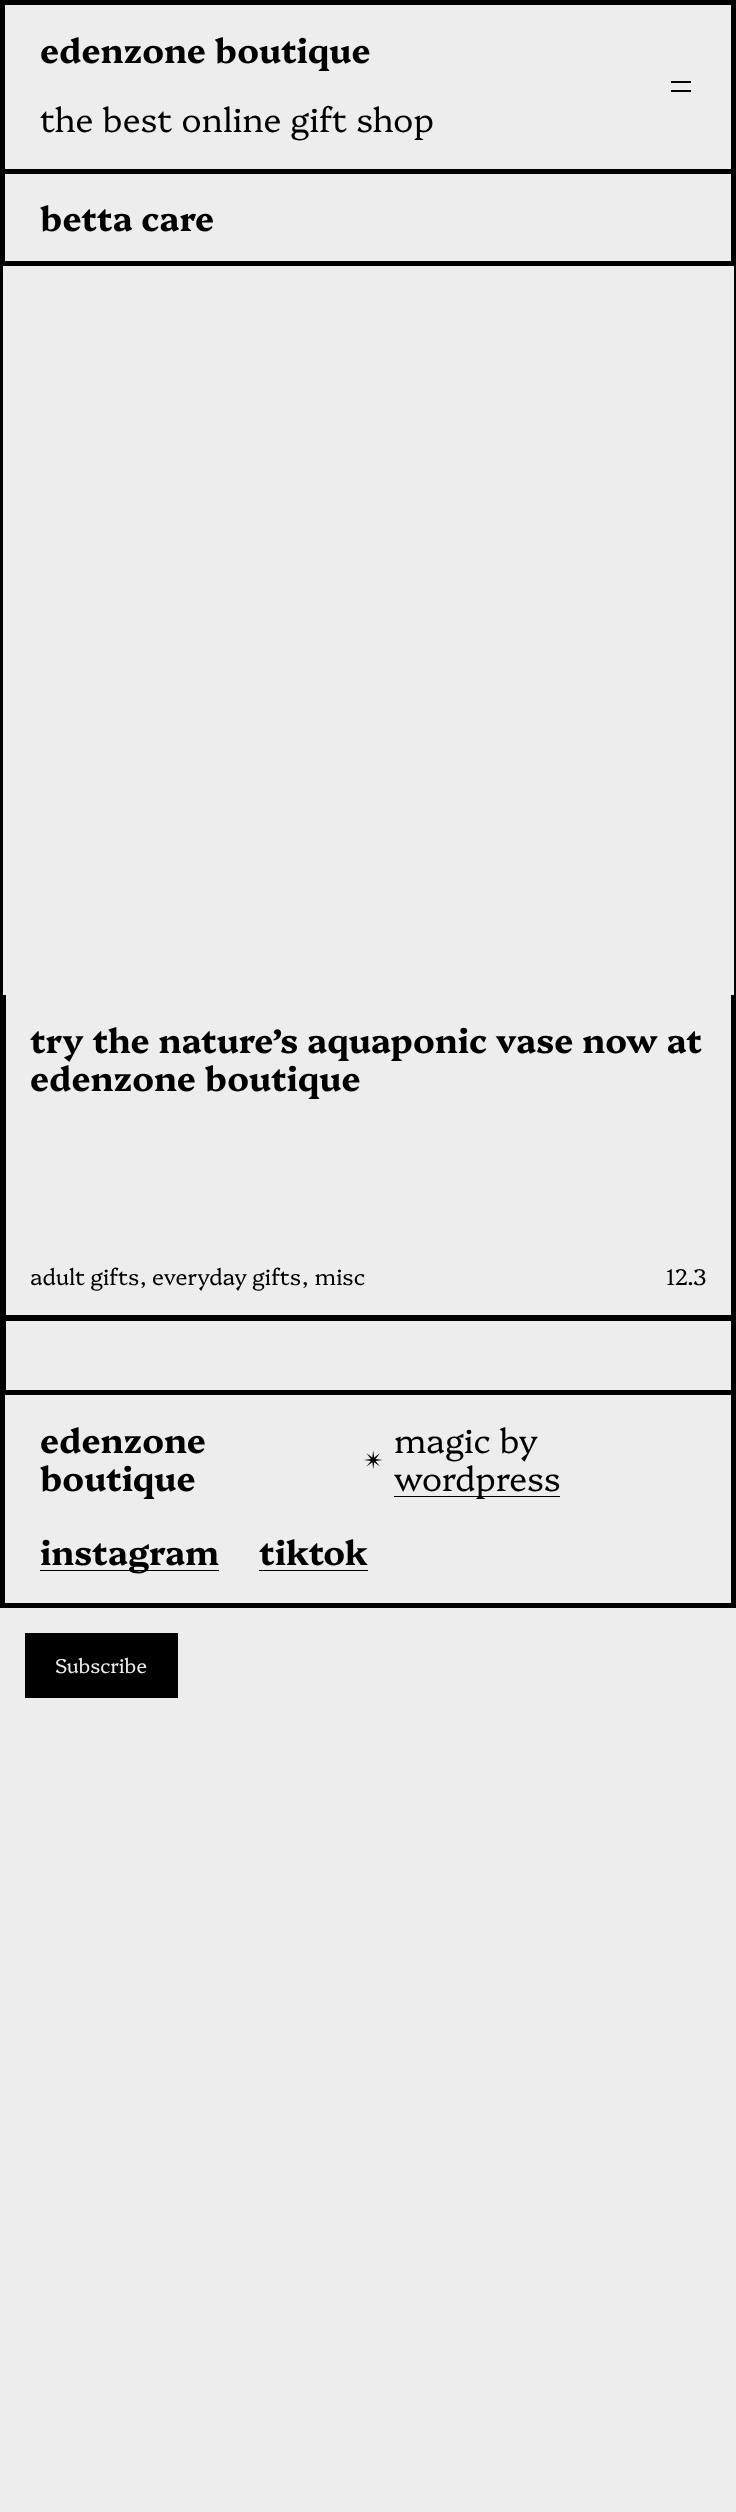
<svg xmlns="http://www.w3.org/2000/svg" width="736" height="2512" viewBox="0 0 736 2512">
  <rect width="100%" height="100%" fill="rgb(237,237,237)"/>
  <rect x="2.5" y="2.5" width="731" height="169" fill="none" stroke="rgb(0,0,0)" stroke-width="5"/>
  <text x="40" y="63" font-family="Platypi" font-size="33.75" font-weight="bold" fill="rgb(0,0,0)">edenzone boutique</text>
  <text x="40" y="132" font-family="Platypi" font-size="33.75" font-weight="300" fill="rgb(0,0,0)">the best online gift shop</text>
  <rect x="671" y="81" width="20" height="2" fill="rgb(0,0,0)"/>
  <rect x="671" y="90" width="20" height="2" fill="rgb(0,0,0)"/>
  <rect x="731" y="174" width="5" height="92" fill="rgb(0,0,0)"/>
  <rect x="0" y="261" width="736" height="5" fill="rgb(0,0,0)"/>
  <rect x="0" y="174" width="5" height="92" fill="rgb(0,0,0)"/>
  <text x="40" y="231" font-family="Platypi" font-size="33.75" font-weight="bold" fill="rgb(0,0,0)">betta care</text>
  <rect x="734" y="264" width="2" height="1131" fill="rgb(0,0,0)"/>
  <rect x="0" y="264" width="3" height="1131" fill="rgb(0,0,0)"/>
  <rect x="3" y="1315" width="731" height="3" fill="rgb(0,0,0)"/>
  <rect x="731" y="995" width="3" height="400" fill="rgb(0,0,0)"/>
  <rect x="3" y="1390" width="731" height="5" fill="rgb(0,0,0)"/>
  <rect x="3" y="1315" width="3" height="80" fill="rgb(0,0,0)"/>
  <rect x="3" y="1318" width="731" height="3" fill="rgb(0,0,0)"/>
  <rect x="3" y="995" width="3" height="325" fill="rgb(0,0,0)"/>
  <g font-family="Platypi" font-size="33.75" font-weight="bold" fill="rgb(0,0,0)">
    <text>
      <tspan x="30" y="1053">try the nature’s aquaponic vase now at</tspan>
      <tspan x="30" y="1091">edenzone boutique</tspan>
    </text>
  </g>
  <g font-family="Platypi" font-size="22.5" font-weight="300" fill="rgb(0,0,0)">
    <text x="30" y="1285" word-spacing="-1">adult gifts</text>
    <text x="140" y="1285">,</text>
    <text x="152" y="1285" word-spacing="-1">everyday gifts</text>
    <text x="302" y="1285">, misc</text>
    <text x="666" y="1285">12.3</text>
  </g>
  <rect x="731" y="1395" width="5" height="213" fill="rgb(0,0,0)"/>
  <rect x="0" y="1603" width="736" height="5" fill="rgb(0,0,0)"/>
  <rect x="0" y="1395" width="5" height="213" fill="rgb(0,0,0)"/>
  <g font-family="Platypi" font-size="33.75" font-weight="bold" fill="rgb(0,0,0)">
    <text>
      <tspan x="40" y="1453">edenzone</tspan>
      <tspan x="40" y="1491">boutique</tspan>
    </text>
  </g>
  <text x="363" y="1469" font-family="DejaVu Sans" font-size="25" fill="rgb(0,0,0)">✴︎</text>
  <text x="394" y="1453" font-family="Platypi" font-size="33.75" font-weight="300" fill="rgb(0,0,0)">magic by</text>
  <rect x="394" y="1496" width="166" height="1" fill="rgb(0,0,0)"/>
  <text x="394" y="1491" font-family="Platypi" font-size="33.75" font-weight="300" fill="rgb(0,0,0)">wordpress</text>
  <rect x="40" y="1570" width="179" height="1" fill="rgb(0,0,0)"/>
  <g font-family="Platypi" font-size="33.75" font-weight="bold" fill="rgb(0,0,0)">
    <text x="40" y="1565">instagram</text>
    <text x="259" y="1565">tiktok</text>
  </g>
  <rect x="259" y="1570" width="109" height="1" fill="rgb(0,0,0)"/>
  <rect x="25" y="1633" width="153" height="65" fill="rgb(0,0,0)"/>
  <text x="55" y="1673" font-family="Platypi" font-size="20" font-weight="300" fill="rgb(237,237,237)">Subscribe</text>
</svg>
